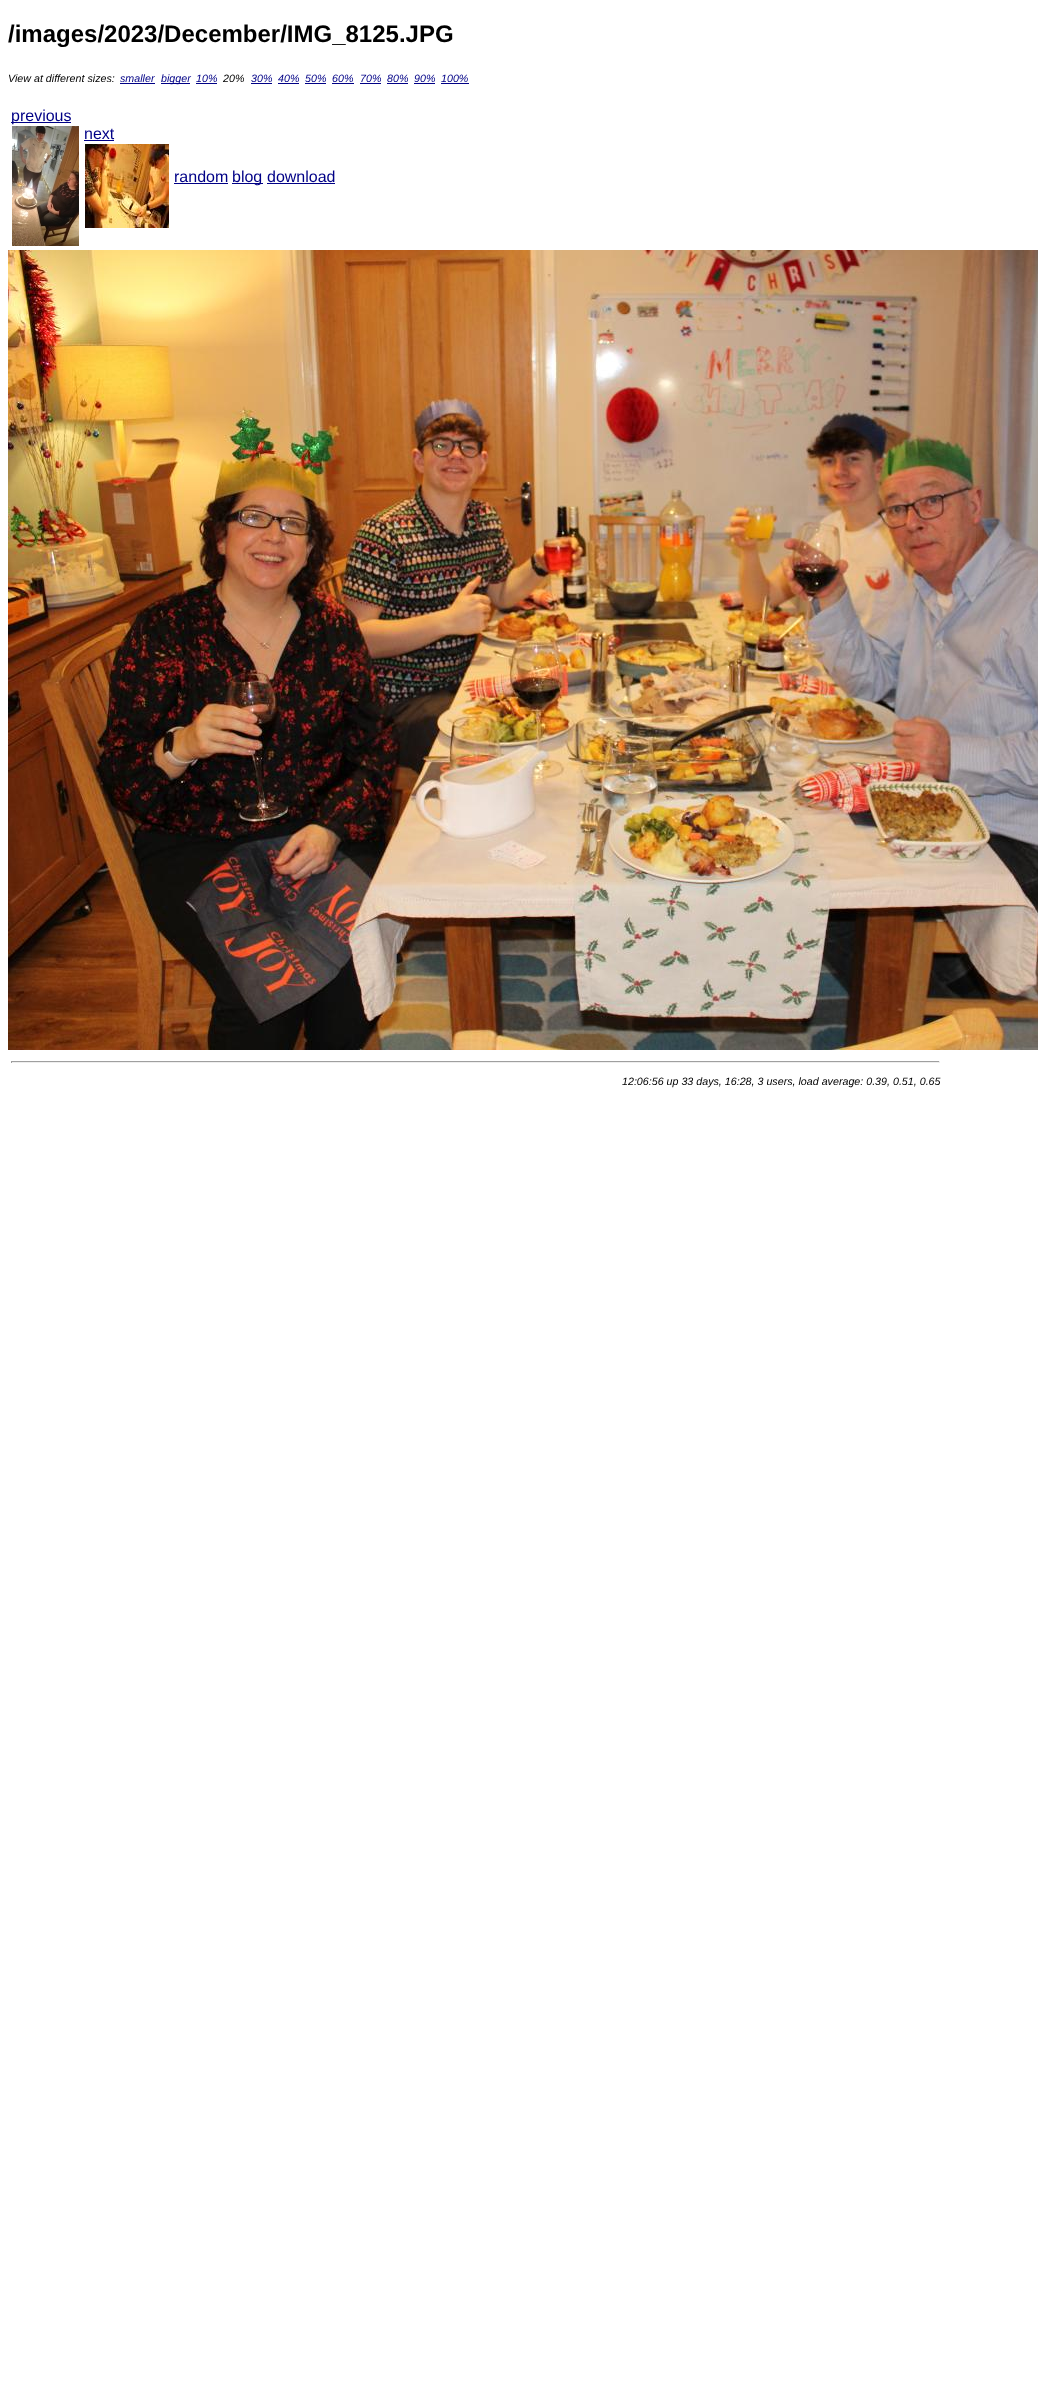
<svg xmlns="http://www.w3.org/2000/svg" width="1038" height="2398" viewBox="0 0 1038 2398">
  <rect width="100%" height="100%" fill="rgb(255,255,255)"/>
  <text x="8" y="42" font-family="Liberation Sans" font-size="24" font-weight="bold" fill="rgb(0,0,0)">/images/2023/December/IMG_8125.JPG</text>
  <text x="8" y="82" font-family="Liberation Sans" font-size="10.7" font-style="italic" fill="rgb(0,0,0)">View at different sizes:</text>
  <text x="120" y="82" font-family="Liberation Sans" font-size="10.7" font-style="italic" fill="rgb(0,0,134)">smaller</text>
  <rect x="120" y="83" width="35" height="1" fill="rgb(0,0,134)"/>
  <rect x="161" y="83" width="29" height="1" fill="rgb(0,0,134)"/>
  <g font-family="Liberation Sans" font-size="10.7" font-style="italic" fill="rgb(0,0,134)">
    <text x="161" y="82">bigger</text>
    <text x="196" y="82">10%</text>
  </g>
  <rect x="196" y="83" width="21" height="1" fill="rgb(0,0,134)"/>
  <text x="223" y="82" font-family="Liberation Sans" font-size="10.7" font-style="italic" fill="rgb(0,0,0)">20%</text>
  <text x="251" y="82" font-family="Liberation Sans" font-size="10.7" font-style="italic" fill="rgb(0,0,134)">30%</text>
  <rect x="251" y="83" width="21" height="1" fill="rgb(0,0,134)"/>
  <text x="278" y="82" font-family="Liberation Sans" font-size="10.7" font-style="italic" fill="rgb(0,0,134)">40%</text>
  <rect x="278" y="83" width="21" height="1" fill="rgb(0,0,134)"/>
  <text x="305" y="82" font-family="Liberation Sans" font-size="10.7" font-style="italic" fill="rgb(0,0,134)">50%</text>
  <rect x="305" y="83" width="21" height="1" fill="rgb(0,0,134)"/>
  <text x="332" y="82" font-family="Liberation Sans" font-size="10.7" font-style="italic" fill="rgb(0,0,134)">60%</text>
  <rect x="332" y="83" width="22" height="1" fill="rgb(0,0,134)"/>
  <text x="360" y="82" font-family="Liberation Sans" font-size="10.7" font-style="italic" fill="rgb(0,0,134)">70%</text>
  <rect x="360" y="83" width="21" height="1" fill="rgb(0,0,134)"/>
  <text x="387" y="82" font-family="Liberation Sans" font-size="10.7" font-style="italic" fill="rgb(0,0,134)">80%</text>
  <rect x="387" y="83" width="21" height="1" fill="rgb(0,0,134)"/>
  <text x="414" y="82" font-family="Liberation Sans" font-size="10.7" font-style="italic" fill="rgb(0,0,134)">90%</text>
  <rect x="414" y="83" width="21" height="1" fill="rgb(0,0,134)"/>
  <text x="441" y="82" font-family="Liberation Sans" font-size="10.7" font-style="italic" fill="rgb(0,0,134)">100%</text>
  <rect x="441" y="83" width="28" height="1" fill="rgb(0,0,134)"/>
  <rect x="11" y="122" width="60" height="1" fill="rgb(0,0,134)"/>
  <text x="11" y="121" font-family="Liberation Sans" font-size="16" fill="rgb(0,0,134)">previous</text>
  <image x="12" y="126" width="67" height="120" href="pic1.png"/>
  <text x="84" y="139" font-family="Liberation Sans" font-size="16" fill="rgb(0,0,134)">next</text>
  <rect x="84" y="140" width="30" height="1" fill="rgb(0,0,134)"/>
  <image x="85" y="144" width="84" height="84" href="pic2.png"/>
  <text x="174" y="182" font-family="Liberation Sans" font-size="16" fill="rgb(0,0,134)">random</text>
  <rect x="174" y="183" width="54" height="1" fill="rgb(0,0,134)"/>
  <rect x="232" y="183" width="31" height="1" fill="rgb(0,0,134)"/>
  <g font-family="Liberation Sans" font-size="16" fill="rgb(0,0,134)">
    <text x="232" y="182">blog</text>
    <text x="267" y="182">download</text>
  </g>
  <rect x="267" y="183" width="68" height="1" fill="rgb(0,0,134)"/>
  <image x="8" y="250" width="1030" height="800" href="pic3.png"/>
  <rect x="11" y="1061" width="929" height="1" fill="rgb(159,159,159)"/>
  <rect x="939" y="1061" width="1" height="2" fill="rgb(238,238,238)"/>
  <rect x="11" y="1062" width="929" height="1" fill="rgb(238,238,238)"/>
  <rect x="11" y="1061" width="1" height="2" fill="rgb(159,159,159)"/>
  <text x="622" y="1085" font-family="Liberation Sans" font-size="10.7" font-style="italic" fill="rgb(0,0,0)">12:06:56 up 33 days, 16:28, 3 users, load average: 0.39, 0.51, 0.65</text>
</svg>
